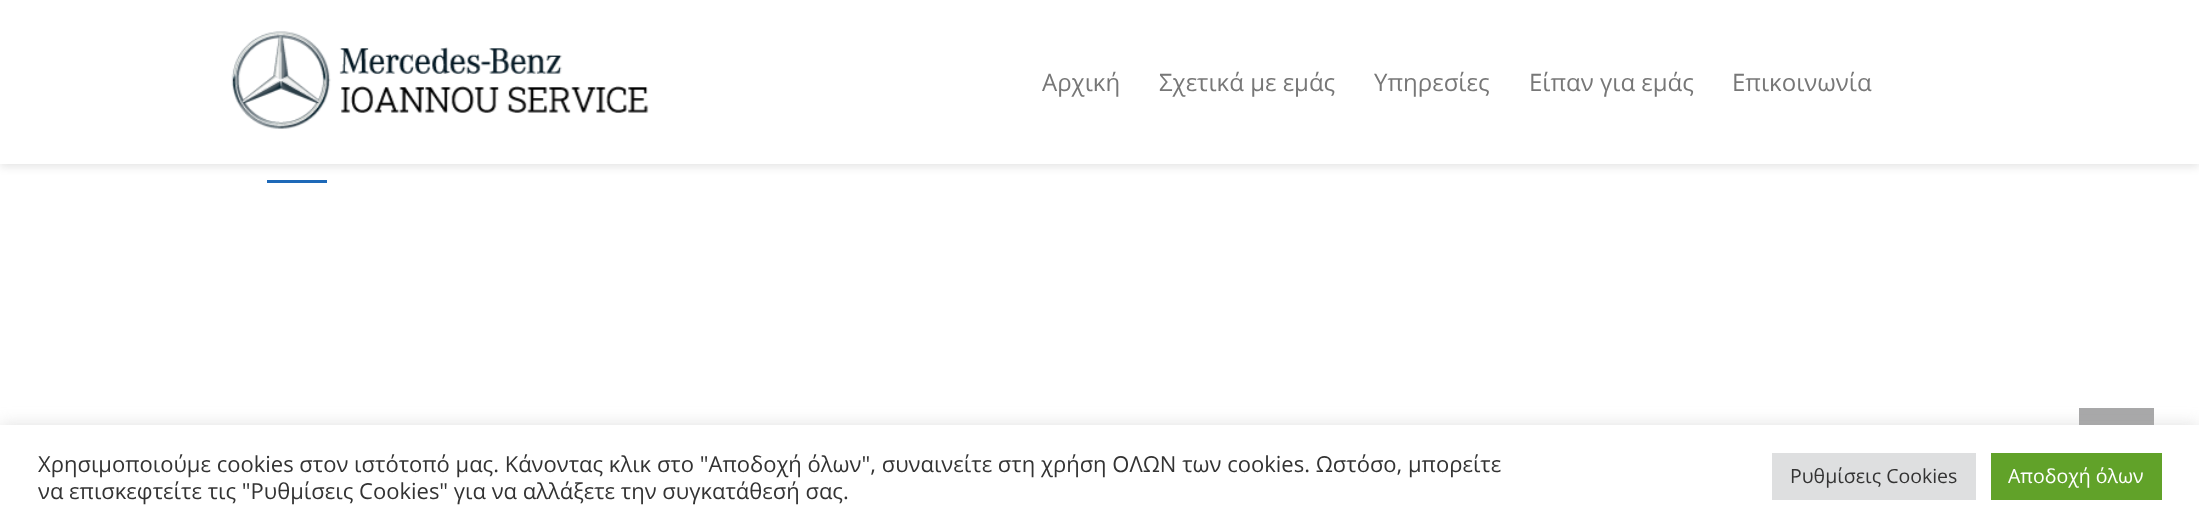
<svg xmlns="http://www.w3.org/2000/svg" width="2199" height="527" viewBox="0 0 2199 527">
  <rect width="100%" height="100%" fill="rgb(255,255,255)"/>
  <rect x="0" y="3" width="2199" height="164" fill="rgba(0,0,0,0.1)" filter="blur(4px)"/>
  <rect x="0" y="0" width="2199" height="164" fill="rgb(255,255,255)"/>
  <image x="231" y="31" width="418" height="98" href="pic1.png"/>
  <g font-family="Open Sans" font-size="24" fill="rgb(119,119,119)">
    <text x="1042" y="91">Αρχική</text>
    <text x="1159" y="91">Σχετικά με εμάς</text>
    <text x="1374" y="91">Υπηρεσίες</text>
    <text x="1529" y="91">Είπαν για εμάς</text>
    <text x="1732" y="91">Επικοινωνία</text>
  </g>
  <rect x="267" y="180" width="60" height="3" fill="rgb(30,105,184)"/>
  <rect x="2079" y="408" width="75" height="17" fill="rgb(168,168,169)"/>
  <rect x="0" y="423" width="2199" height="104" fill="rgba(172,171,171,0.3)" filter="blur(7.5px)"/>
  <rect x="0" y="425" width="2199" height="102" fill="rgb(255,255,255)"/>
  <g font-family="Open Sans" font-size="22" fill="rgb(51,51,51)">
    <text>
      <tspan x="38" y="472">Χρησιμοποιούμε cookies στον ιστότοπό μας. Κάνοντας κλικ στο "Αποδοχή όλων", συναινείτε στη χρήση ΟΛΩΝ των cookies. Ωστόσο, μπορείτε</tspan>
      <tspan x="38" y="499">να επισκεφτείτε τις "Ρυθμίσεις Cookies" για να αλλάξετε την συγκατάθεσή σας.</tspan>
    </text>
  </g>
  <rect x="1772" y="453" width="204" height="47" fill="rgb(222,223,224)"/>
  <text x="1790" y="483" font-family="Open Sans" font-size="19.5" fill="rgb(51,51,51)">Ρυθμίσεις Cookies</text>
  <rect x="1991" y="453" width="171" height="47" fill="rgb(97,162,41)"/>
  <text x="2008" y="483" font-family="Open Sans" font-size="19.5" fill="rgb(255,255,255)">Αποδοχή όλων</text>
</svg>
